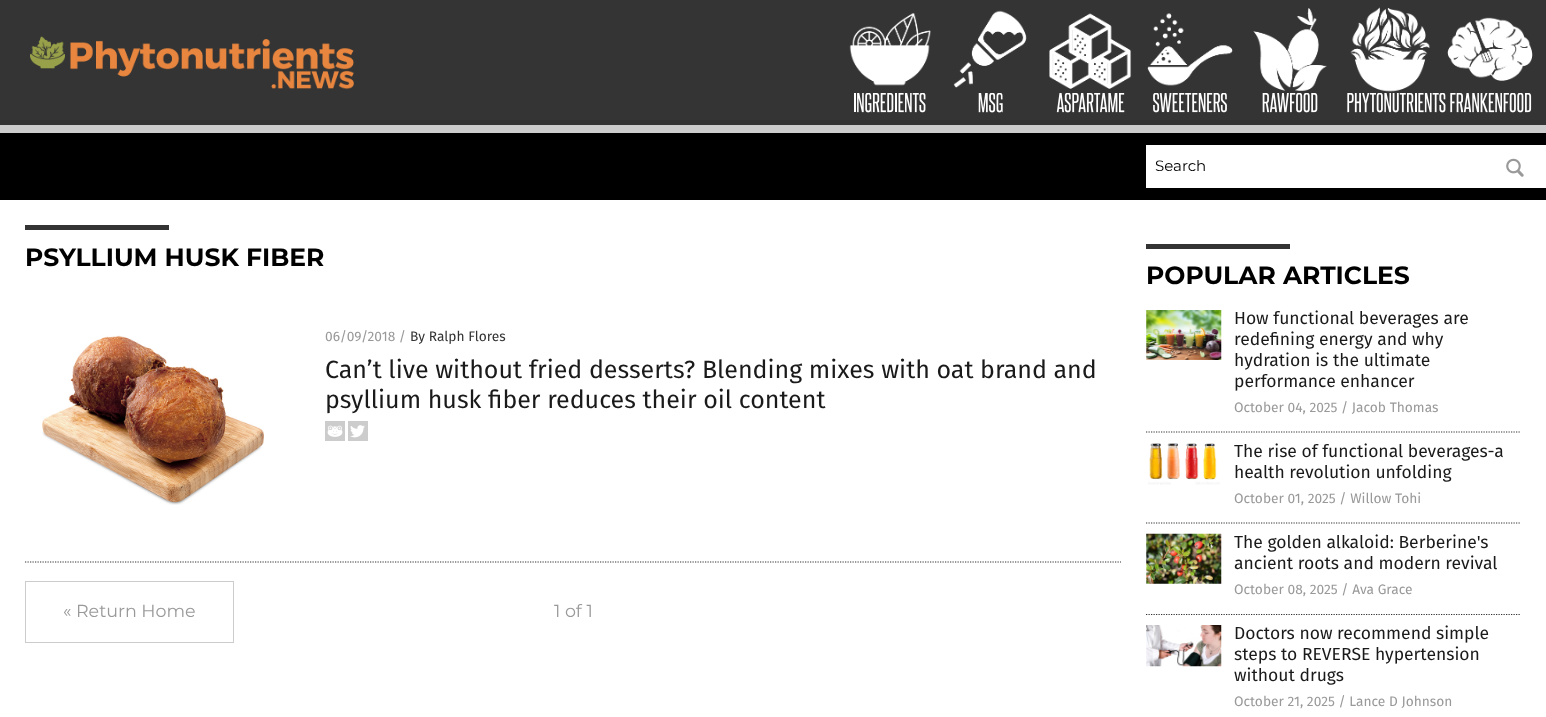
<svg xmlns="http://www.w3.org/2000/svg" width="1546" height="717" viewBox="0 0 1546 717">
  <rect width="100%" height="100%" fill="rgb(0,0,0)"/>
  <rect x="0" y="0" width="1546" height="125" fill="rgb(52,52,52)"/>
  <image x="30" y="36" width="324" height="54" href="pic1.png"/>
  <image x="849" y="13" width="82" height="73" href="pic2.png"/>
  <image x="854" y="93" width="72" height="20" href="pic3.png"/>
  <image x="953" y="10" width="74" height="78" href="pic4.png"/>
  <image x="978" y="93" width="25" height="20" href="pic5.png"/>
  <image x="1049" y="13" width="83" height="76" href="pic6.png"/>
  <image x="1056" y="93" width="69" height="20" href="pic7.png"/>
  <image x="1147" y="13" width="86" height="73" href="pic8.png"/>
  <image x="1153" y="93" width="74" height="20" href="pic9.png"/>
  <image x="1253" y="8" width="74" height="83" href="pic10.png"/>
  <image x="1262" y="93" width="56" height="20" href="pic11.png"/>
  <image x="1350" y="7" width="80" height="85" href="pic12.png"/>
  <image x="1347" y="93" width="99" height="20" href="pic13.png"/>
  <image x="1447" y="17" width="86" height="64" href="pic14.png"/>
  <image x="1450" y="93" width="82" height="20" href="pic15.png"/>
  <rect x="0" y="125" width="1546" height="8" fill="rgb(204,204,204)"/>
  <rect x="1146" y="145" width="400" height="43" fill="rgb(255,255,255)"/>
  <text x="1155" y="171" font-family="Montserrat" font-size="15" fill="rgb(0,0,0)">Search</text>
  <image x="1506" y="158" width="18" height="19" href="pic16.png"/>
  <rect x="0" y="200" width="1546" height="517" fill="rgb(255,255,255)"/>
  <rect x="25" y="225" width="144" height="5" fill="rgb(52,52,52)"/>
  <text x="25" y="266" font-family="Montserrat" font-size="25" font-weight="bold" fill="rgb(0,0,0)">PSYLLIUM HUSK FIBER</text>
  <path d="M25 562H1121" fill="none" stroke="rgb(52,52,52)" stroke-width="1.2" stroke-dasharray="1.25 1.25"/>
  <image x="42" y="335" width="222" height="170" href="pic17.png"/>
  <text x="325" y="341" font-family="Fira Sans" font-size="13.75" fill="rgb(153,153,153)">06/09/2018 /</text>
  <text x="410" y="341" font-family="Fira Sans" font-size="13.75" fill="rgb(51,51,51)">By Ralph Flores</text>
  <g font-family="Fira Sans" font-size="25" fill="rgb(26,26,26)">
    <text>
      <tspan x="325" y="378">Can’t live without fried desserts? Blending mixes with oat brand and</tspan>
      <tspan x="325" y="408">psyllium husk fiber reduces their oil content</tspan>
    </text>
  </g>
  <image x="325" y="421" width="20" height="20" href="pic18.png"/>
  <image x="348" y="421" width="20" height="20" href="pic19.png"/>
  <rect x="25.5" y="581.5" width="208" height="61" fill="none" stroke="rgb(204,204,204)"/>
  <g font-family="Montserrat" font-size="17.5" fill="rgb(153,153,153)">
    <text x="63" y="617">« Return Home</text>
    <text x="554" y="617">1 of 1</text>
  </g>
  <rect x="1146" y="244" width="144" height="5" fill="rgb(52,52,52)"/>
  <text x="1146" y="284" font-family="Montserrat" font-size="25" font-weight="bold" fill="rgb(0,0,0)">POPULAR ARTICLES</text>
  <path d="M1146 432H1521" fill="none" stroke="rgb(52,52,52)" stroke-width="1.2" stroke-dasharray="1.25 1.25"/>
  <image x="1146" y="310" width="76" height="50" href="pic20.png"/>
  <g font-family="Fira Sans" font-size="17.5" fill="rgb(26,26,26)">
    <text>
      <tspan x="1234" y="324">How functional beverages are</tspan>
      <tspan x="1234" y="345">redefining energy and why</tspan>
      <tspan x="1234" y="366">hydration is the ultimate</tspan>
      <tspan x="1234" y="387">performance enhancer</tspan>
    </text>
  </g>
  <text x="1234" y="412" font-family="Fira Sans" font-size="13.75" fill="rgb(153,153,153)">October 04, 2025 / Jacob Thomas</text>
  <path d="M1146 523H1521" fill="none" stroke="rgb(52,52,52)" stroke-width="1.2" stroke-dasharray="1.25 1.25"/>
  <image x="1148" y="443" width="72" height="42" href="pic21.png"/>
  <g font-family="Fira Sans" font-size="17.5" fill="rgb(26,26,26)">
    <text>
      <tspan x="1234" y="457">The rise of functional beverages-a</tspan>
      <tspan x="1234" y="478">health revolution unfolding</tspan>
    </text>
  </g>
  <text x="1234" y="503" font-family="Fira Sans" font-size="13.75" fill="rgb(153,153,153)">October 01, 2025 / Willow Tohi</text>
  <path d="M1146 614.5H1521" fill="none" stroke="rgb(52,52,52)" stroke-width="1.2" stroke-dasharray="1.25 1.25"/>
  <image x="1146" y="533" width="76" height="51" href="pic22.png"/>
  <g font-family="Fira Sans" font-size="17.5" fill="rgb(26,26,26)">
    <text>
      <tspan x="1234" y="548">The golden alkaloid: Berberine's</tspan>
      <tspan x="1234" y="569">ancient roots and modern revival</tspan>
    </text>
  </g>
  <text x="1234" y="594" font-family="Fira Sans" font-size="13.75" fill="rgb(153,153,153)">October 08, 2025 / Ava Grace</text>
  <image x="1146" y="625" width="76" height="42" href="pic23.png"/>
  <g font-family="Fira Sans" font-size="17.5" fill="rgb(26,26,26)">
    <text>
      <tspan x="1234" y="639">Doctors now recommend simple</tspan>
      <tspan x="1234" y="660">steps to REVERSE hypertension</tspan>
      <tspan x="1234" y="681">without drugs</tspan>
    </text>
  </g>
  <text x="1234" y="706" font-family="Fira Sans" font-size="13.75" fill="rgb(153,153,153)">October 21, 2025 / Lance D Johnson</text>
</svg>
